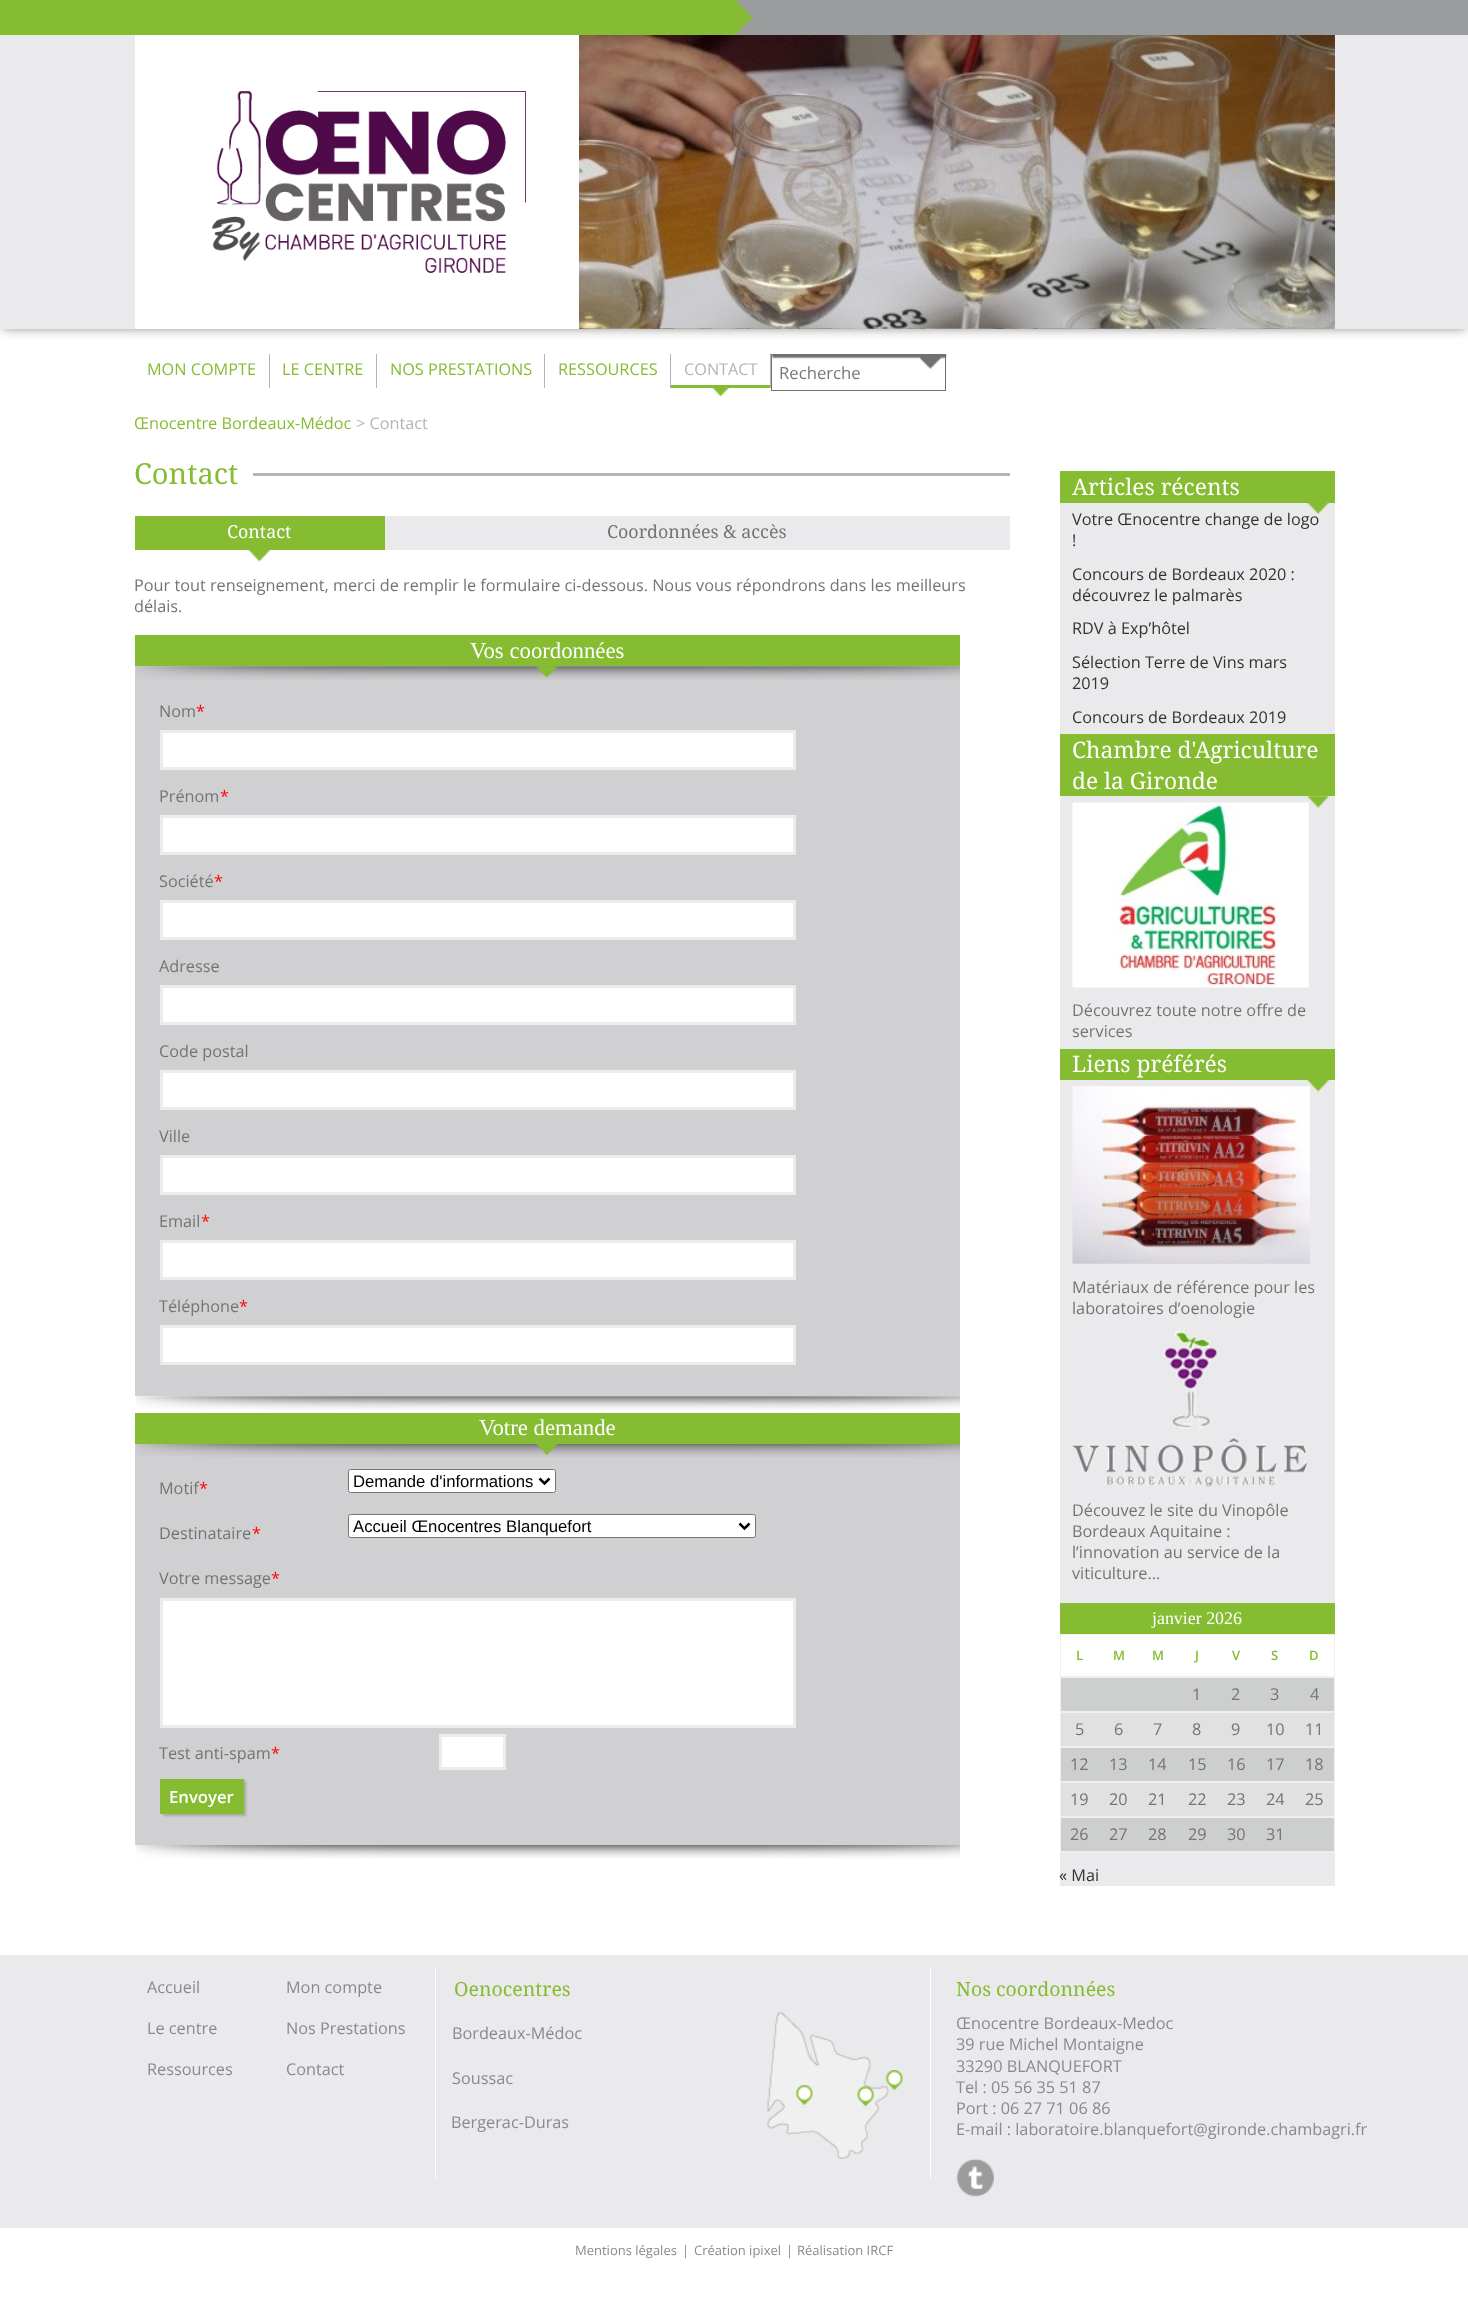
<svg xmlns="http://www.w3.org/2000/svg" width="1468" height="2302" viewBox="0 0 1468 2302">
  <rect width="100%" height="100%" fill="rgb(255,255,255)"/>
  <rect x="3" y="39" width="1463" height="289" fill="rgb(128,128,128)" filter="blur(6px)"/>
  <rect x="735" y="0" width="733" height="35" fill="rgb(155,156,158)"/>
  <rect x="0" y="0" width="735" height="35" fill="rgb(133,188,49)"/>
  <image x="735" y="0" width="18" height="35" href="pic1.png"/>
  <rect x="0" y="35" width="1468" height="294" fill="rgb(234,234,236)"/>
  <rect x="135" y="35" width="444" height="294" fill="rgb(255,255,255)"/>
  <image x="211" y="91" width="315" height="182" href="pic2.png"/>
  <image x="579" y="328" width="756" height="1" href="pic4.png"/>
  <image x="579" y="328" width="756" height="1" href="pic5.png"/>
  <image x="579" y="328" width="756" height="1" href="pic6.png"/>
  <image x="579" y="328" width="756" height="1" href="pic7.png"/>
  <image x="579" y="328" width="756" height="1" href="pic8.png"/>
  <image x="579" y="35" width="756" height="294" href="pic3.png"/>
  <rect x="269" y="354" width="1" height="34" fill="rgb(180,180,182)"/>
  <text x="147" y="375" font-family="Open Sans" font-size="16.25" fill="rgb(133,188,49)">MON COMPTE</text>
  <rect x="376" y="354" width="1" height="34" fill="rgb(180,180,182)"/>
  <text x="282" y="375" font-family="Open Sans" font-size="16.25" fill="rgb(133,188,49)">LE CENTRE</text>
  <rect x="544" y="354" width="1" height="34" fill="rgb(180,180,182)"/>
  <text x="390" y="375" font-family="Open Sans" font-size="16.25" fill="rgb(133,188,49)">NOS PRESTATIONS</text>
  <rect x="670" y="354" width="1" height="34" fill="rgb(180,180,182)"/>
  <text x="558" y="375" font-family="Open Sans" font-size="16.25" fill="rgb(133,188,49)">RESSOURCES</text>
  <rect x="770" y="354" width="1" height="34" fill="rgb(180,180,182)"/>
  <rect x="671" y="385" width="99" height="3" fill="rgb(133,188,49)"/>
  <text x="684" y="375" font-family="Open Sans" font-size="16.25" fill="rgb(180,180,182)">CONTACT</text>
  <image x="712" y="388" width="17" height="9" href="pic9.png"/>
  <image x="772" y="355" width="175" height="14" href="pic10.png"/>
  <rect x="771.5" y="354.5" width="174" height="36" fill="none" stroke="rgb(111,112,114)"/>
  <text x="779" y="379" font-family="Open Sans" font-size="16.7" fill="rgb(120,120,122)">Recherche</text>
  <text x="134" y="429" font-family="Open Sans" font-size="16.25" fill="rgb(133,188,49)">Œnocentre Bordeaux-Médoc</text>
  <text x="356" y="429" font-family="Open Sans" font-size="16.25" fill="rgb(180,180,182)">&gt; Contact</text>
  <text x="134" y="484" font-family="Droid Serif" font-size="29" fill="rgb(133,188,49)">Contact</text>
  <rect x="253" y="473" width="757" height="3" fill="rgb(180,180,182)"/>
  <rect x="385" y="516" width="625" height="34" fill="rgb(234,234,236)"/>
  <rect x="135" y="516" width="250" height="34" fill="rgb(133,188,49)"/>
  <text x="227" y="538" font-family="Droid Serif" font-size="17.9" fill="rgb(255,255,255)">Contact</text>
  <image x="248" y="550" width="22" height="12" href="pic11.png"/>
  <text x="607" y="538" font-family="Droid Serif" font-size="17.9" fill="rgb(116,116,116)">Coordonnées &amp; accès</text>
  <g font-family="Open Sans" font-size="16.25" fill="rgb(116,116,116)">
    <text>
      <tspan x="134" y="591">Pour tout renseignement, merci de remplir le formulaire ci-dessous. Nous vous répondrons dans les meilleurs</tspan>
      <tspan x="134" y="612">délais.</tspan>
    </text>
  </g>
  <rect x="135" y="635" width="825" height="31" fill="rgb(133,188,49)"/>
  <text x="470" y="658" font-family="Liberation Serif" font-size="22.75" fill="rgb(255,255,255)">Vos coordonnées</text>
  <rect x="135" y="666" width="825" height="730" fill="rgb(208,208,210)"/>
  <image x="136" y="666" width="824" height="14" href="pic13.png"/>
  <image x="536" y="666" width="22" height="12" href="pic12.png"/>
  <text x="159" y="717" font-family="Open Sans" font-size="16.25" fill="rgb(116,116,116)">Nom</text>
  <text x="196" y="717" font-family="Open Sans" font-size="16.25" fill="rgb(255,0,0)">*</text>
  <rect x="161.5" y="731.5" width="633" height="37" fill="rgb(255,255,255)" stroke="rgb(236,236,236)" stroke-width="3"/>
  <text x="159" y="802" font-family="Open Sans" font-size="16.25" fill="rgb(116,116,116)">Prénom</text>
  <text x="220" y="802" font-family="Open Sans" font-size="16.25" fill="rgb(255,0,0)">*</text>
  <rect x="161.5" y="816.5" width="633" height="37" fill="rgb(255,255,255)" stroke="rgb(236,236,236)" stroke-width="3"/>
  <text x="159" y="887" font-family="Open Sans" font-size="16.25" fill="rgb(116,116,116)">Société</text>
  <text x="214" y="887" font-family="Open Sans" font-size="16.25" fill="rgb(255,0,0)">*</text>
  <rect x="161.5" y="901.5" width="633" height="37" fill="rgb(255,255,255)" stroke="rgb(236,236,236)" stroke-width="3"/>
  <text x="159" y="972" font-family="Open Sans" font-size="16.25" fill="rgb(116,116,116)">Adresse</text>
  <rect x="161.5" y="986.5" width="633" height="37" fill="rgb(255,255,255)" stroke="rgb(236,236,236)" stroke-width="3"/>
  <text x="159" y="1057" font-family="Open Sans" font-size="16.25" fill="rgb(116,116,116)">Code postal</text>
  <rect x="161.5" y="1071.5" width="633" height="37" fill="rgb(255,255,255)" stroke="rgb(236,236,236)" stroke-width="3"/>
  <text x="159" y="1142" font-family="Open Sans" font-size="16.25" fill="rgb(116,116,116)">Ville</text>
  <rect x="161.5" y="1156.5" width="633" height="37" fill="rgb(255,255,255)" stroke="rgb(236,236,236)" stroke-width="3"/>
  <text x="159" y="1227" font-family="Open Sans" font-size="16.25" fill="rgb(116,116,116)">Email</text>
  <text x="201" y="1227" font-family="Open Sans" font-size="16.25" fill="rgb(255,0,0)">*</text>
  <rect x="161.5" y="1241.5" width="633" height="37" fill="rgb(255,255,255)" stroke="rgb(236,236,236)" stroke-width="3"/>
  <text x="159" y="1312" font-family="Open Sans" font-size="16.25" fill="rgb(116,116,116)">Téléphone</text>
  <text x="239" y="1312" font-family="Open Sans" font-size="16.25" fill="rgb(255,0,0)">*</text>
  <rect x="161.5" y="1326.5" width="633" height="37" fill="rgb(255,255,255)" stroke="rgb(236,236,236)" stroke-width="3"/>
  <image x="136" y="1396" width="824" height="14" href="pic14.png"/>
  <rect x="135" y="1413" width="825" height="31" fill="rgb(133,188,49)"/>
  <text x="479" y="1435" font-family="Liberation Serif" font-size="22.75" fill="rgb(255,255,255)">Votre demande</text>
  <rect x="135" y="1444" width="825" height="401" fill="rgb(208,208,210)"/>
  <image x="136" y="1444" width="824" height="13" href="pic16.png"/>
  <image x="536" y="1444" width="22" height="11" href="pic15.png"/>
  <text x="159" y="1494" font-family="Open Sans" font-size="16.25" fill="rgb(116,116,116)">Motif</text>
  <text x="199" y="1494" font-family="Open Sans" font-size="16.25" fill="rgb(255,0,0)">*</text>
  <rect x="348.5" y="1469.5" width="207" height="23" rx="2" fill="rgb(255,255,255)" stroke="rgb(118,118,118)"/>
  <path d="M539.5 1478.5L544.5 1483.5L549.5 1478.5" fill="none" stroke="rgb(0,0,0)" stroke-width="2.5"/>
  <text x="353" y="1487" font-family="Liberation Sans" font-size="16.7" fill="rgb(0,0,0)">Demande d'informations</text>
  <text x="159" y="1539" font-family="Open Sans" font-size="16.25" fill="rgb(116,116,116)">Destinataire</text>
  <text x="252" y="1539" font-family="Open Sans" font-size="16.25" fill="rgb(255,0,0)">*</text>
  <rect x="348.5" y="1514.5" width="407" height="23" rx="2" fill="rgb(255,255,255)" stroke="rgb(118,118,118)"/>
  <path d="M739.5 1523.5L744.5 1528.5L749.5 1523.5" fill="none" stroke="rgb(0,0,0)" stroke-width="2.5"/>
  <text x="353" y="1532" font-family="Liberation Sans" font-size="16.7" fill="rgb(0,0,0)">Accueil Œnocentres Blanquefort</text>
  <text x="159" y="1584" font-family="Open Sans" font-size="16.25" fill="rgb(116,116,116)">Votre message</text>
  <text x="271" y="1584" font-family="Open Sans" font-size="16.25" fill="rgb(255,0,0)">*</text>
  <rect x="161.5" y="1599.5" width="633" height="127" fill="rgb(255,255,255)" stroke="rgb(236,236,236)" stroke-width="3"/>
  <text x="159" y="1759" font-family="Open Sans" font-size="16.25" fill="rgb(116,116,116)">Test anti-spam</text>
  <text x="271" y="1759" font-family="Open Sans" font-size="16.25" fill="rgb(255,0,0)">*</text>
  <rect x="440.5" y="1735.5" width="64" height="33" fill="rgb(255,255,255)" stroke="rgb(236,236,236)" stroke-width="3"/>
  <rect x="163" y="1781" width="83" height="35" fill="rgb(170,170,170)" filter="blur(1px)"/>
  <rect x="160" y="1779" width="84" height="35" fill="rgb(133,188,49)"/>
  <text x="169" y="1803" font-family="Open Sans" font-size="16.7" font-weight="600" fill="rgb(255,255,255)">Envoyer</text>
  <image x="136" y="1845" width="824" height="14" href="pic17.png"/>
  <rect x="1060" y="503" width="275" height="231" fill="rgb(234,234,236)"/>
  <rect x="1060" y="471" width="275" height="32" fill="rgb(133,188,49)"/>
  <text x="1072" y="495" font-family="Droid Serif" font-size="22.75" fill="rgb(255,255,255)">Articles récents</text>
  <text x="1072" y="525" font-family="Open Sans" font-size="16.25" fill="rgb(51,51,51)">Votre Œnocentre change de logo</text>
  <image x="1307" y="503" width="22" height="11" href="pic18.png"/>
  <g font-family="Open Sans" font-size="16.25" fill="rgb(51,51,51)">
    <text x="1072" y="546">!</text>
    <text>
      <tspan x="1072" y="580">Concours de Bordeaux 2020 :</tspan>
      <tspan x="1072" y="601">découvrez le palmarès</tspan>
    </text>
    <text x="1072" y="634">RDV à Exp’hôtel</text>
    <text>
      <tspan x="1072" y="668">Sélection Terre de Vins mars</tspan>
      <tspan x="1072" y="689">2019</tspan>
    </text>
    <text x="1072" y="723">Concours de Bordeaux 2019</text>
  </g>
  <rect x="1060" y="796" width="275" height="253" fill="rgb(234,234,236)"/>
  <rect x="1060" y="734" width="275" height="62" fill="rgb(133,188,49)"/>
  <g font-family="Droid Serif" font-size="22.75" fill="rgb(255,255,255)">
    <text>
      <tspan x="1072" y="758">Chambre d'Agriculture</tspan>
      <tspan x="1072" y="789">de la Gironde</tspan>
    </text>
  </g>
  <image x="1072" y="802" width="237" height="186" href="pic20.png"/>
  <image x="1307" y="796" width="22" height="12" href="pic19.png"/>
  <g font-family="Open Sans" font-size="16.25" fill="rgb(116,116,116)">
    <text>
      <tspan x="1072" y="1016">Découvrez toute notre offre de</tspan>
      <tspan x="1072" y="1037">services</tspan>
    </text>
  </g>
  <rect x="1060" y="1080" width="275" height="806" fill="rgb(234,234,236)"/>
  <rect x="1060" y="1049" width="275" height="31" fill="rgb(133,188,49)"/>
  <text x="1072" y="1072" font-family="Droid Serif" font-size="22.75" fill="rgb(255,255,255)">Liens préférés</text>
  <image x="1072" y="1086" width="238" height="178" href="pic22.png"/>
  <image x="1307" y="1080" width="22" height="12" href="pic21.png"/>
  <g font-family="Open Sans" font-size="16.25" fill="rgb(116,116,116)">
    <text>
      <tspan x="1072" y="1293">Matériaux de référence pour les</tspan>
      <tspan x="1072" y="1314">laboratoires d’oenologie</tspan>
    </text>
  </g>
  <image x="1072" y="1331" width="236" height="156" href="pic23.png"/>
  <g font-family="Open Sans" font-size="16.25" fill="rgb(116,116,116)">
    <text>
      <tspan x="1072" y="1516">Découvez le site du Vinopôle</tspan>
      <tspan x="1072" y="1537">Bordeaux Aquitaine :</tspan>
      <tspan x="1072" y="1558">l’innovation au service de la</tspan>
      <tspan x="1072" y="1579">viticulture…</tspan>
    </text>
  </g>
  <rect x="1060" y="1634" width="275" height="219" fill="rgb(239,239,239)"/>
  <rect x="1060" y="1603" width="275" height="31" fill="rgb(133,188,49)"/>
  <text x="1152" y="1624" font-family="Liberation Serif" font-size="17.9" fill="rgb(255,255,255)">janvier 2026</text>
  <rect x="1061" y="1635" width="273" height="41" fill="rgb(255,255,255)"/>
  <g font-family="Open Sans" font-size="13" font-weight="600" fill="rgb(133,188,49)">
    <text x="1076" y="1660">L</text>
    <text x="1113" y="1660">M</text>
    <text x="1152" y="1660">M</text>
    <text x="1195" y="1660">J</text>
    <text x="1232" y="1660">V</text>
    <text x="1271" y="1660">S</text>
    <text x="1309" y="1660">D</text>
  </g>
  <rect x="1061" y="1678" width="273" height="33" fill="rgb(205,206,206)"/>
  <g font-family="Open Sans" font-size="16.25" fill="rgb(116,116,116)">
    <text x="1192" y="1700">1</text>
    <text x="1231" y="1700">2</text>
    <text x="1270" y="1700">3</text>
    <text x="1310" y="1700">4</text>
  </g>
  <rect x="1061" y="1713" width="273" height="33" fill="rgb(225,225,226)"/>
  <g font-family="Open Sans" font-size="16.25" fill="rgb(116,116,116)">
    <text x="1075" y="1735">5</text>
    <text x="1114" y="1735">6</text>
    <text x="1153" y="1735">7</text>
    <text x="1192" y="1735">8</text>
    <text x="1231" y="1735">9</text>
    <text x="1266" y="1735">10</text>
    <text x="1305" y="1735">11</text>
  </g>
  <rect x="1061" y="1748" width="273" height="33" fill="rgb(205,206,206)"/>
  <g font-family="Open Sans" font-size="16.25" fill="rgb(116,116,116)">
    <text x="1070" y="1770">12</text>
    <text x="1109" y="1770">13</text>
    <text x="1148" y="1770">14</text>
    <text x="1188" y="1770">15</text>
    <text x="1227" y="1770">16</text>
    <text x="1266" y="1770">17</text>
    <text x="1305" y="1770">18</text>
  </g>
  <rect x="1061" y="1783" width="273" height="33" fill="rgb(225,225,226)"/>
  <g font-family="Open Sans" font-size="16.25" fill="rgb(116,116,116)">
    <text x="1070" y="1805">19</text>
    <text x="1109" y="1805">20</text>
    <text x="1148" y="1805">21</text>
    <text x="1188" y="1805">22</text>
    <text x="1227" y="1805">23</text>
    <text x="1266" y="1805">24</text>
    <text x="1305" y="1805">25</text>
  </g>
  <rect x="1061" y="1818" width="273" height="33" fill="rgb(205,206,206)"/>
  <g font-family="Open Sans" font-size="16.25" fill="rgb(116,116,116)">
    <text x="1070" y="1840">26</text>
    <text x="1109" y="1840">27</text>
    <text x="1148" y="1840">28</text>
    <text x="1188" y="1840">29</text>
    <text x="1227" y="1840">30</text>
    <text x="1266" y="1840">31</text>
  </g>
  <text x="1059" y="1881" font-family="Open Sans" font-size="16.25" fill="rgb(51,51,51)">« Mai</text>
  <rect x="0" y="1955" width="1468" height="273" fill="rgb(234,234,236)"/>
  <g font-family="Open Sans" font-size="16.25" fill="rgb(138,138,140)">
    <text x="147" y="1993">Accueil</text>
    <text x="286" y="1993">Mon compte</text>
    <text x="147" y="2034">Le centre</text>
    <text x="286" y="2034">Nos Prestations</text>
    <text x="147" y="2075">Ressources</text>
    <text x="286" y="2075">Contact</text>
  </g>
  <rect x="930" y="1968" width="1" height="210" fill="rgb(255,255,255)"/>
  <rect x="435" y="1968" width="1" height="210" fill="rgb(255,255,255)"/>
  <text x="454" y="1996" font-family="Droid Serif" font-size="19.5" fill="rgb(133,188,49)">Oenocentres</text>
  <image x="767" y="2012" width="122" height="147" href="pic24.png"/>
  <image x="796" y="2085" width="17" height="23" href="pic25.png"/>
  <text x="452" y="2039" font-family="Open Sans" font-size="16.25" fill="rgb(138,138,140)">Bordeaux-Médoc</text>
  <image x="857" y="2086" width="17" height="24" href="pic26.png"/>
  <text x="452" y="2084" font-family="Open Sans" font-size="16.25" fill="rgb(138,138,140)">Soussac</text>
  <image x="886" y="2070" width="17" height="21" href="pic27.png"/>
  <text x="451" y="2128" font-family="Open Sans" font-size="16.25" fill="rgb(138,138,140)">Bergerac-Duras</text>
  <text x="956" y="1996" font-family="Droid Serif" font-size="19.5" fill="rgb(133,188,49)">Nos coordonnées</text>
  <g font-family="Open Sans" font-size="16.25" fill="rgb(138,138,140)">
    <text>
      <tspan x="956" y="2029">Œnocentre Bordeaux-Medoc</tspan>
      <tspan x="956" y="2050">39 rue Michel Montaigne</tspan>
      <tspan x="956" y="2072">33290 BLANQUEFORT</tspan>
      <tspan x="956" y="2093">Tel : 05 56 35 51 87</tspan>
      <tspan x="956" y="2114">Port : 06 27 71 06 86</tspan>
      <tspan x="956" y="2135">E-mail : laboratoire.blanquefort@gironde.chambagri.fr</tspan>
    </text>
  </g>
  <image x="956" y="2158" width="38" height="39" href="pic28.png"/>
  <g font-family="Open Sans" font-size="13" fill="rgb(138,138,140)">
    <text x="575" y="2255">Mentions légales</text>
    <text x="682" y="2255">|</text>
    <text x="694" y="2255">Création ipixel</text>
    <text x="786" y="2255">|</text>
    <text x="797" y="2255">Réalisation IRCF</text>
  </g>
</svg>
